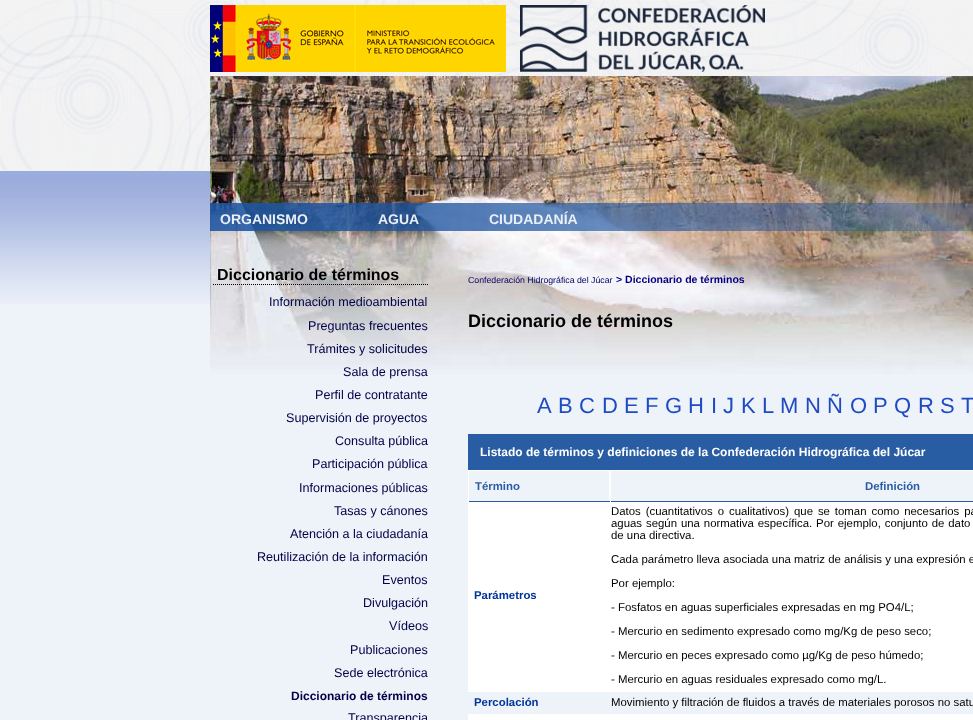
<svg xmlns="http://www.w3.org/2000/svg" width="973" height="720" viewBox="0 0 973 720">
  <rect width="100%" height="100%" fill="rgb(238,243,250)"/>
  <image x="0" y="0" width="973" height="304" href="pic1.png"/>
  <image x="210" y="5" width="296" height="67" href="pic2.png"/>
  <image x="520" y="5" width="245" height="67" href="pic3.png"/>
  <image x="210" y="76" width="763" height="298" href="pic4.png"/>
  <image x="210" y="203" width="763" height="28" href="pic5.png"/>
  <g font-family="Liberation Sans" font-size="14" font-weight="bold" fill="rgb(234,238,245)">
    <text x="220" y="224">ORGANISMO</text>
    <text x="378" y="224">AGUA</text>
    <text x="489" y="224">CIUDADANÍA</text>
  </g>
  <rect x="213" y="266" width="1" height="1" fill="rgb(255,255,255)"/>
  <path d="M213 284.5H428" fill="none" stroke="rgb(0,0,0)" stroke-dasharray="1 1"/>
  <text x="217" y="280" font-family="Liberation Sans" font-size="16" font-weight="bold" fill="rgb(0,0,0)">Diccionario de términos</text>
  <g font-family="Liberation Sans" font-size="12.6" fill="rgb(1,2,71)">
    <text x="269" y="306">Información medioambiental</text>
    <text x="308" y="330">Preguntas frecuentes</text>
    <text x="307" y="353">Trámites y solicitudes</text>
    <text x="343" y="376">Sala de prensa</text>
    <text x="315" y="399">Perfil de contratante</text>
    <text x="286" y="422">Supervisión de proyectos</text>
    <text x="335" y="445">Consulta pública</text>
    <text x="312" y="468">Participación pública</text>
    <text x="299" y="492">Informaciones públicas</text>
    <text x="334" y="515">Tasas y cánones</text>
    <text x="290" y="538">Atención a la ciudadanía</text>
    <text x="257" y="561">Reutilización de la información</text>
    <text x="382" y="584">Eventos</text>
    <text x="363" y="607">Divulgación</text>
    <text x="389" y="630">Vídeos</text>
    <text x="350" y="654">Publicaciones</text>
    <text x="334" y="677">Sede electrónica</text>
  </g>
  <text x="291" y="700" font-family="Liberation Sans" font-size="12" font-weight="bold" fill="rgb(1,2,71)">Diccionario de términos</text>
  <text x="348" y="722" font-family="Liberation Sans" font-size="12.6" fill="rgb(1,2,71)">Transparencia</text>
  <text x="468" y="283" font-family="Liberation Sans" font-size="8.75" fill="rgb(0,0,102)">Confederación Hidrográfica del Júcar</text>
  <text x="616" y="283" font-family="Liberation Sans" font-size="10.5" font-weight="bold" fill="rgb(0,0,128)">&gt; Diccionario de términos</text>
  <text x="468" y="327" font-family="Liberation Sans" font-size="18" font-weight="bold" fill="rgb(0,0,0)">Diccionario de términos</text>
  <g font-family="Liberation Sans" font-size="22" fill="rgb(31,75,194)">
    <text x="537" y="413">A</text>
    <text x="558" y="413">B</text>
    <text x="579" y="413">C</text>
    <text x="602" y="413">D</text>
    <text x="624" y="413">E</text>
    <text x="645" y="413">F</text>
    <text x="665" y="413">G</text>
    <text x="688" y="413">H</text>
    <text x="711" y="413">I</text>
    <text x="723" y="413">J</text>
    <text x="741" y="413">K</text>
    <text x="762" y="413">L</text>
    <text x="780" y="413">M</text>
    <text x="805" y="413">N</text>
    <text x="827" y="413">Ñ</text>
    <text x="850" y="413">O</text>
    <text x="873" y="413">P</text>
    <text x="894" y="413">Q</text>
    <text x="918" y="413">R</text>
    <text x="940" y="413">S</text>
    <text x="961" y="413">T</text>
  </g>
  <rect x="468" y="434" width="505" height="36" fill="rgb(41,93,163)"/>
  <text x="480" y="456" font-family="Liberation Sans" font-size="12" font-weight="bold" fill="rgb(255,255,255)">Listado de términos y definiciones de la Confederación Hidrográfica del Júcar</text>
  <rect x="468" y="470" width="505" height="1" fill="rgb(255,255,255)"/>
  <rect x="609" y="470" width="1" height="32" fill="rgb(255,255,255)"/>
  <rect x="468" y="501" width="505" height="1" fill="rgb(41,93,163)"/>
  <rect x="468" y="470" width="1" height="32" fill="rgb(255,255,255)"/>
  <text x="475" y="490" font-family="Liberation Sans" font-size="11.4" font-weight="bold" fill="rgb(41,93,163)">Término</text>
  <rect x="610" y="470" width="1" height="32" fill="rgb(255,255,255)"/>
  <text x="865" y="490" font-family="Liberation Sans" font-size="11.4" font-weight="bold" fill="rgb(41,93,163)">Definición</text>
  <rect x="468" y="502" width="505" height="190" fill="rgb(255,255,255)"/>
  <text x="474" y="599" font-family="Liberation Sans" font-size="11.4" font-weight="bold" fill="rgb(0,51,153)">Parámetros</text>
  <g font-family="Liberation Sans" font-size="11.4" fill="rgb(0,0,0)">
    <text>
      <tspan x="611" y="515" word-spacing="1.75">Datos (cuantitativos o cualitativos) que se toman como necesarios pa</tspan>
      <tspan x="611" y="527" word-spacing="0.75">aguas según una normativa específica. Por ejemplo, conjunto de dato</tspan>
      <tspan x="611" y="539">de una directiva.</tspan>
    </text>
    <text x="611" y="563">Cada parámetro lleva asociada una matriz de análisis y una expresión e</text>
    <text x="611" y="587">Por ejemplo:</text>
    <text x="611" y="611">- Fosfatos en aguas superficiales expresadas en mg PO4/L;</text>
    <text x="611" y="635">- Mercurio en sedimento expresado como mg/Kg de peso seco;</text>
    <text x="611" y="659">- Mercurio en peces expresado como µg/Kg de peso húmedo;</text>
    <text x="611" y="683">- Mercurio en aguas residuales expresado como mg/L.</text>
  </g>
  <text x="474" y="706" font-family="Liberation Sans" font-size="11.4" font-weight="bold" fill="rgb(0,51,153)">Percolación</text>
  <text x="611" y="706" font-family="Liberation Sans" font-size="11.4" fill="rgb(0,0,0)">Movimiento y filtración de fluidos a través de materiales porosos no satu</text>
  <rect x="468" y="714" width="505" height="6" fill="rgb(255,255,255)"/>
</svg>
